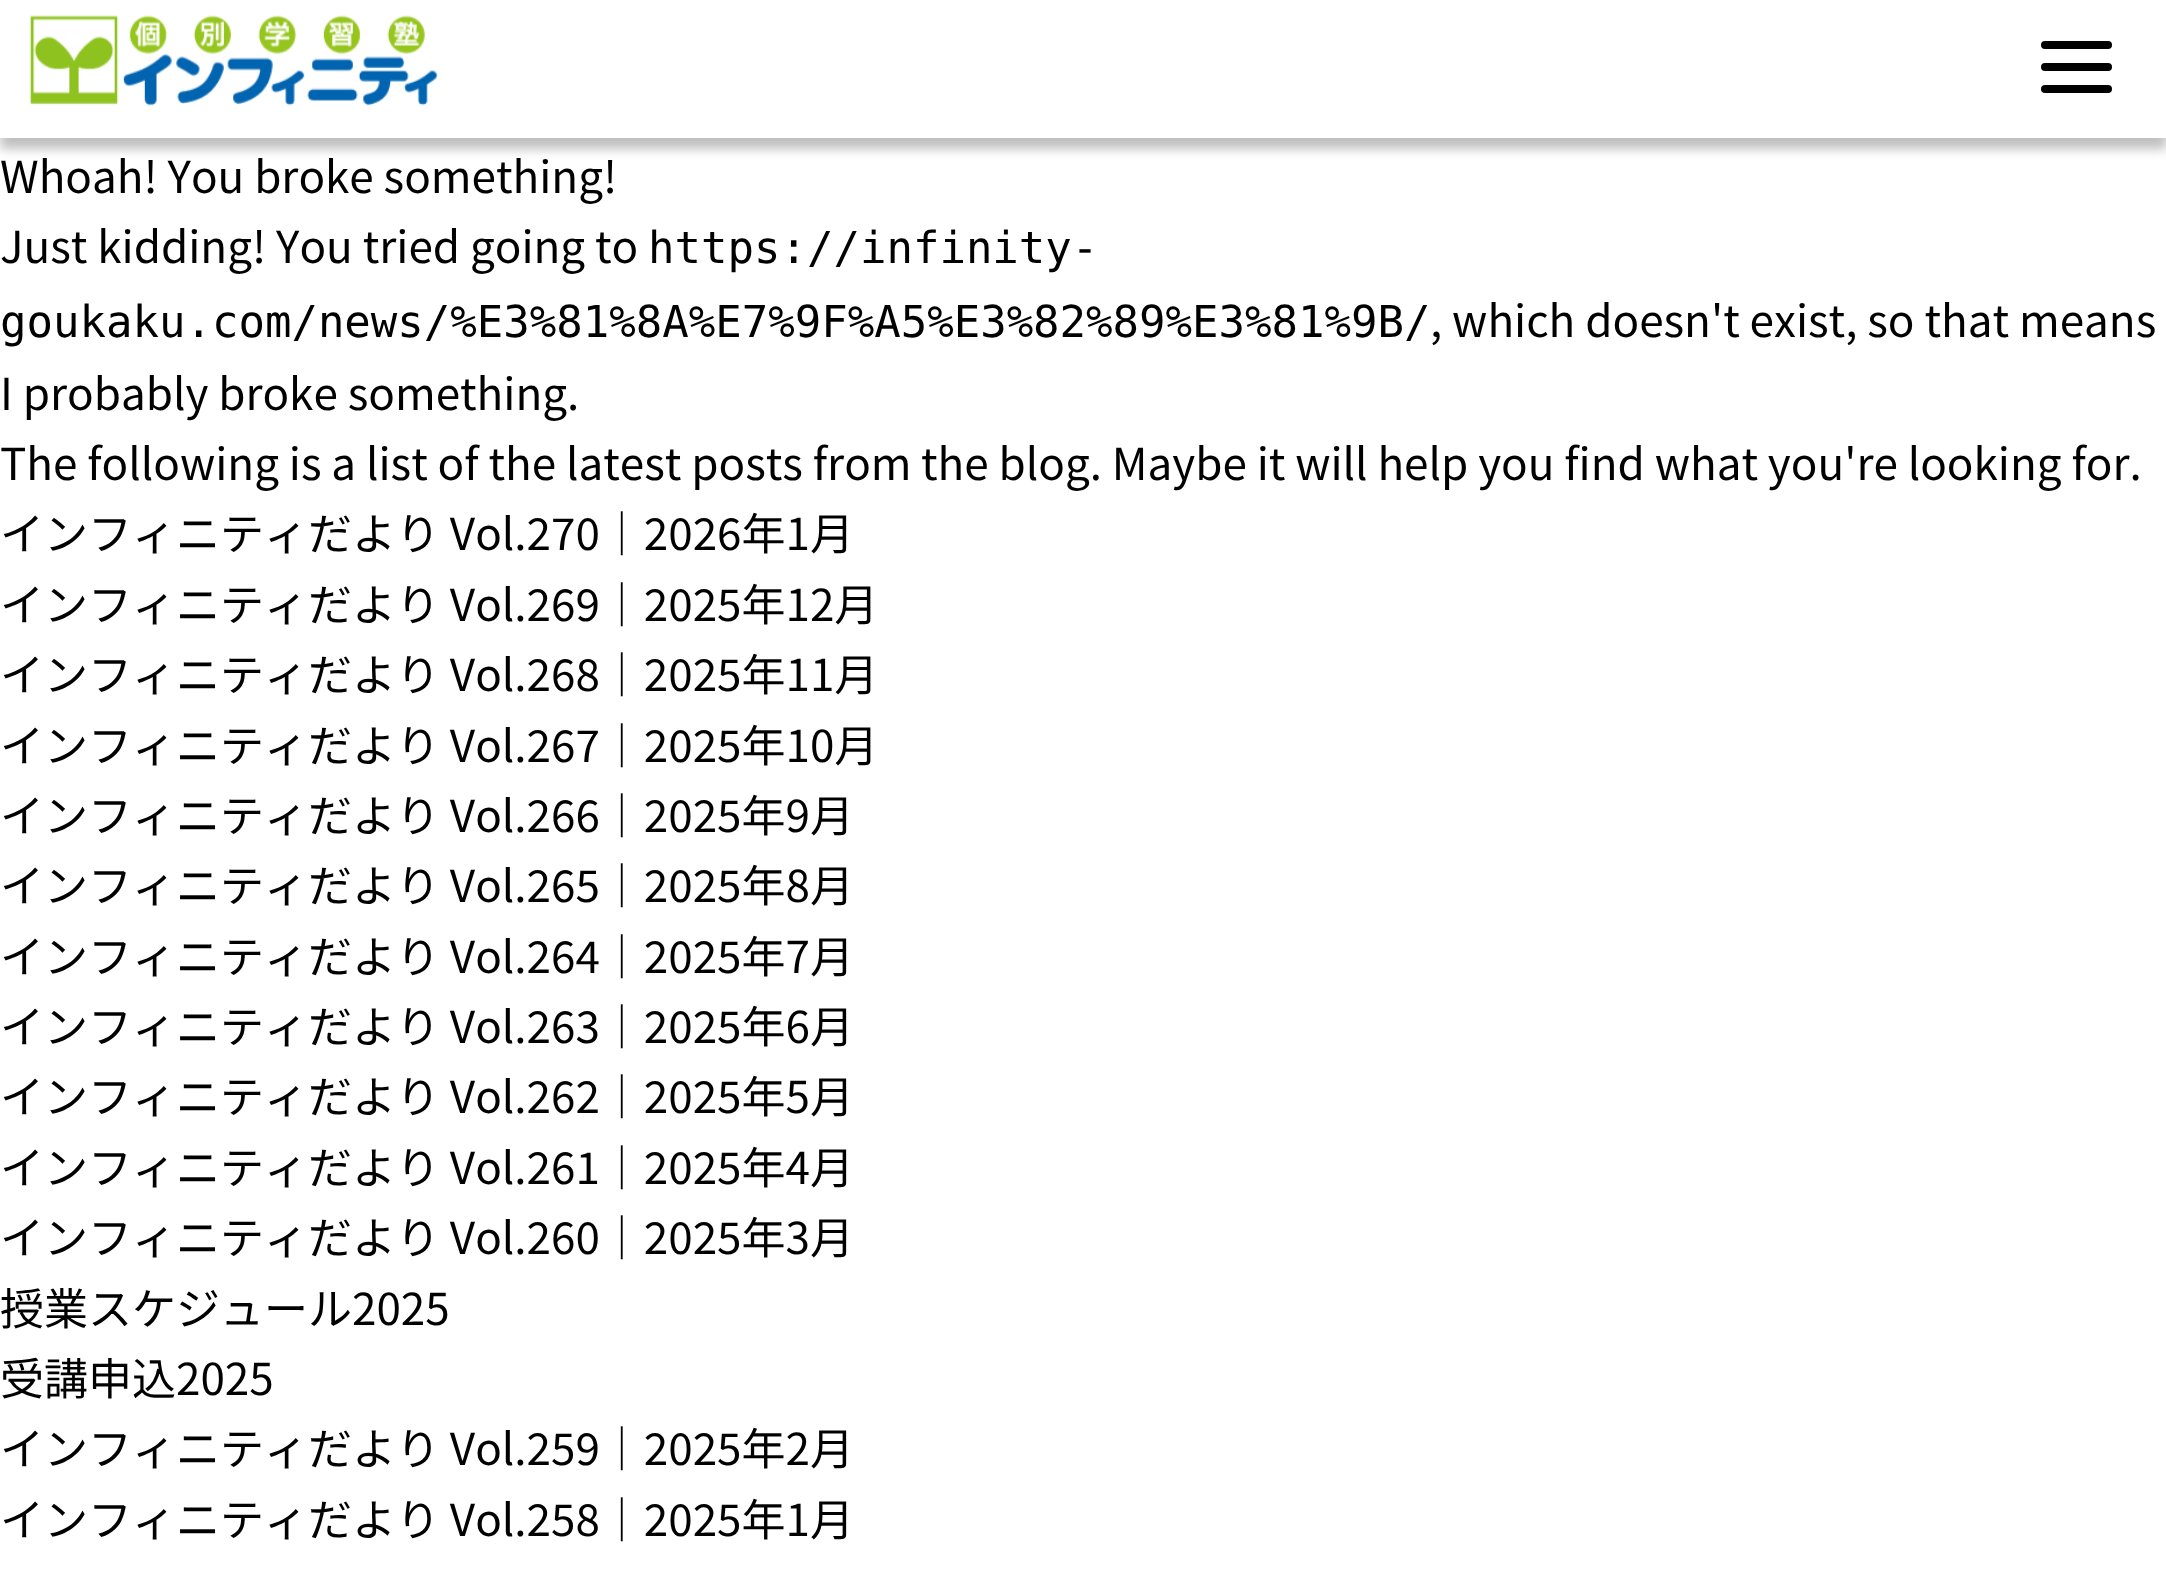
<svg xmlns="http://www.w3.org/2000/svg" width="2166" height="1579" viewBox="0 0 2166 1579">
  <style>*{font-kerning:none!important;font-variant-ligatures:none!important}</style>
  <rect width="100%" height="100%" fill="rgb(255,255,255)"/>
  <rect x="0" y="11" width="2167" height="138" fill="rgba(0,0,0,0.25)" filter="blur(5.5px)"/>
  <rect x="0" y="1" width="2166" height="137" fill="rgb(255,255,255)"/>
  <image x="29" y="15" width="409" height="91" href="pic1.png"/>
  <rect x="2041" y="41" width="71" height="8" rx="4" fill="rgb(0,0,0)"/>
  <rect x="2041" y="63" width="71" height="8" rx="4" fill="rgb(0,0,0)"/>
  <rect x="2041" y="85" width="71" height="8" rx="4" fill="rgb(0,0,0)"/>
  <g font-family="Noto Sans JP" font-size="44" fill="rgb(0,0,0)">
    <text>
      <tspan x="0" y="193">Whoah! You broke something!</tspan>
      <tspan x="0" y="263">Just kidding! You tried going to</tspan>
    </text>
  </g>
  <g font-family="DejaVu Sans Mono" font-size="44" fill="rgb(0,0,0)">
    <text x="648" y="263">https://infinity-</text>
    <text x="0" y="337">goukaku.com/news/%E3%81%8A%E7%9F%A5%E3%82%89%E3%81%9B/</text>
  </g>
  <g font-family="Noto Sans JP" font-size="44" fill="rgb(0,0,0)">
    <text x="1430" y="337">, which doesn't exist, so that means</text>
    <text>
      <tspan x="0" y="410">I probably broke something.</tspan>
      <tspan x="0" y="480">The following is a list of the latest posts from</tspan>
    </text>
    <text x="921" y="480">the blog. Maybe it will help you find what you're looking for.</text>
    <text>
      <tspan x="0" y="550">インフィニティだより Vol.270｜2026年1月</tspan>
      <tspan x="0" y="621">インフィニティだより Vol.269｜2025年12月</tspan>
      <tspan x="0" y="691">インフィニティだより Vol.268｜2025年11月</tspan>
      <tspan x="0" y="762">インフィニティだより Vol.267｜2025年10月</tspan>
      <tspan x="0" y="832">インフィニティだより Vol.266｜2025年9月</tspan>
      <tspan x="0" y="902">インフィニティだより Vol.265｜2025年8月</tspan>
      <tspan x="0" y="973">インフィニティだより Vol.264｜2025年7月</tspan>
      <tspan x="0" y="1043">インフィニティだより Vol.263｜2025年6月</tspan>
      <tspan x="0" y="1113">インフィニティだより Vol.262｜2025年5月</tspan>
      <tspan x="0" y="1184">インフィニティだより Vol.261｜2025年4月</tspan>
      <tspan x="0" y="1254">インフィニティだより Vol.260｜2025年3月</tspan>
      <tspan x="0" y="1325">授業スケジュール2025</tspan>
      <tspan x="0" y="1395">受講申込2025</tspan>
      <tspan x="0" y="1465">インフィニティだより Vol.259｜2025年2月</tspan>
      <tspan x="0" y="1536">インフィニティだより Vol.258｜2025年1月</tspan>
    </text>
  </g>
</svg>
